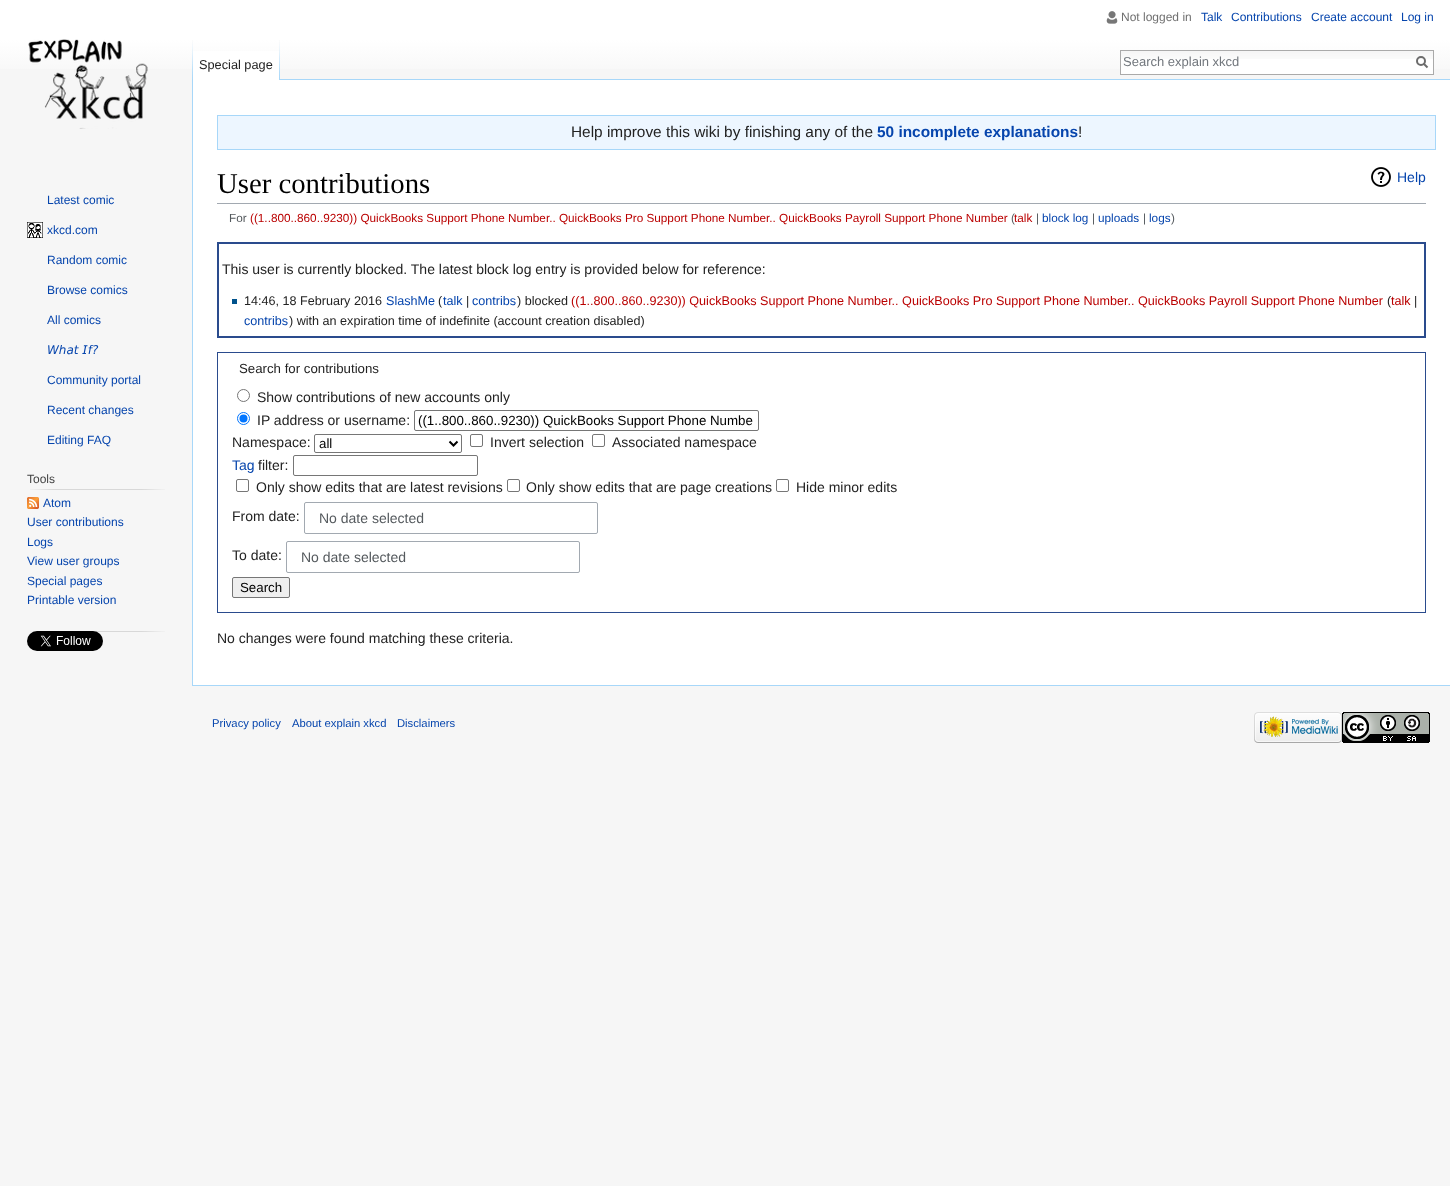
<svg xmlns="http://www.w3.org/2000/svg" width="1450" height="1186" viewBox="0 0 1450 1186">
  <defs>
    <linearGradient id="g1" gradientUnits="userSpaceOnUse" x1="725" y1="0" x2="725" y2="80"><stop offset="0.5" stop-color="rgb(255,255,255)"/><stop offset="1" stop-color="rgb(246,246,246)"/></linearGradient>
  </defs>
  <rect width="100%" height="100%" fill="rgb(246,246,246)"/>
  <rect x="0" y="0" width="1450" height="69" fill="url(#g1)"/>
  <image x="1106" y="11" width="12" height="13" href="pic1.png"/>
  <text x="1121" y="21" font-family="Liberation Sans" font-size="12" fill="rgb(112,112,112)">Not logged in</text>
  <g font-family="Liberation Sans" font-size="12" fill="rgb(6,69,173)">
    <text x="1201" y="21">Talk</text>
    <text x="1231" y="21">Contributions</text>
    <text x="1311" y="21">Create account</text>
    <text x="1401" y="21">Log in</text>
  </g>
  <image x="192" y="40" width="1" height="39" href="pic2.png"/>
  <rect x="193" y="51" width="86" height="29" fill="rgb(255,255,255)"/>
  <image x="279" y="40" width="1" height="40" href="pic3.png"/>
  <text x="199" y="69" font-family="Liberation Sans" font-size="12.75" fill="rgb(34,34,34)">Special page</text>
  <rect x="1121" y="59" width="312" height="15" fill="rgb(255,255,255)"/>
  <image x="1121" y="51" width="312" height="8" href="pic4.png"/>
  <rect x="1120.5" y="50.5" width="313" height="24" fill="none" stroke="rgb(170,170,170)"/>
  <text x="1123" y="66" font-family="Liberation Sans" font-size="13" fill="rgb(114,119,125)">Search explain xkcd</text>
  <path d="M1427.5 67.5L1423.5 63.5" fill="none" stroke="rgb(108,108,108)" stroke-width="2"/>
  <circle cx="1421" cy="61" r="4" fill="none" stroke="rgb(108,108,108)" stroke-width="2"/>
  <image x="28" y="39" width="120" height="90" href="pic5.png"/>
  <text x="47" y="204" font-family="Liberation Sans" font-size="12" fill="rgb(6,69,173)">Latest comic</text>
  <image x="27" y="222" width="16" height="16" href="pic6.png"/>
  <g font-family="Liberation Sans" font-size="12" fill="rgb(6,69,173)">
    <text x="47" y="234">xkcd.com</text>
    <text x="47" y="264">Random comic</text>
    <text x="47" y="294">Browse comics</text>
    <text x="47" y="324">All comics</text>
  </g>
  <text x="47" y="354" font-family="DejaVu Sans" font-size="12" font-style="italic" fill="rgb(6,69,173)">𝘞𝘩𝘢𝘵 𝘐𝘧?</text>
  <g font-family="Liberation Sans" font-size="12" fill="rgb(6,69,173)">
    <text x="47" y="384">Community portal</text>
    <text x="47" y="414">Recent changes</text>
    <text x="47" y="444">Editing FAQ</text>
  </g>
  <text x="27" y="483" font-family="Liberation Sans" font-size="12" fill="rgb(68,68,68)">Tools</text>
  <image x="30" y="489" width="135" height="1" href="pic7.png"/>
  <image x="27" y="497" width="12" height="12" href="pic8.png"/>
  <g font-family="Liberation Sans" font-size="12" fill="rgb(6,69,173)">
    <text x="43" y="507">Atom</text>
    <text>
      <tspan x="27" y="526">User contributions</tspan>
      <tspan x="27" y="546">Logs</tspan>
      <tspan x="27" y="565">View user groups</tspan>
      <tspan x="27" y="585">Special pages</tspan>
      <tspan x="27" y="604">Printable version</tspan>
    </text>
  </g>
  <image x="30" y="631" width="135" height="1" href="pic7.png"/>
  <image x="27" y="631" width="76" height="20" href="pic9.png"/>
  <rect x="193" y="80" width="1257" height="605" fill="rgb(255,255,255)"/>
  <rect x="280" y="79" width="1170" height="1" fill="rgb(167,215,249)"/>
  <rect x="192" y="685" width="1258" height="1" fill="rgb(167,215,249)"/>
  <rect x="192" y="79" width="1" height="607" fill="rgb(167,215,249)"/>
  <rect x="217.5" y="115.5" width="1218" height="34" fill="rgb(237,246,255)" stroke="rgb(167,215,249)"/>
  <text x="571" y="137" font-family="Liberation Sans" font-size="15.4" fill="rgb(34,34,34)">Help improve this wiki by finishing any of the</text>
  <text x="877" y="137" font-family="Liberation Sans" font-size="15.4" font-weight="bold" fill="rgb(6,69,173)">50 incomplete explanations</text>
  <text x="1078" y="137" font-family="Liberation Sans" font-size="15.4" fill="rgb(34,34,34)">!</text>
  <rect x="217" y="203" width="1209" height="1" fill="rgb(162,169,177)"/>
  <text x="217" y="193" font-family="Liberation Serif" font-size="28.75" fill="rgb(0,0,0)">User contributions</text>
  <image x="1371" y="167" width="20" height="20" href="pic10.png"/>
  <text x="1397" y="182" font-family="Liberation Sans" font-size="14" fill="rgb(6,69,173)">Help</text>
  <text x="229" y="222" font-family="Liberation Sans" font-size="11.75" fill="rgb(84,89,93)">For</text>
  <text x="250" y="222" font-family="Liberation Sans" font-size="11.75" fill="rgb(186,0,0)">((1..800..860..9230)) QuickBooks Support Phone Number.. QuickBooks Pro Support Phone Number.. QuickBooks Payroll Support Phone Number</text>
  <text x="1011" y="222" font-family="Liberation Sans" font-size="11.75" fill="rgb(84,89,93)">(</text>
  <text x="1014" y="222" font-family="Liberation Sans" font-size="11.75" fill="rgb(186,0,0)">talk</text>
  <text x="1036" y="222" font-family="Liberation Sans" font-size="11.75" fill="rgb(84,89,93)">|</text>
  <text x="1042" y="222" font-family="Liberation Sans" font-size="11.75" fill="rgb(6,69,173)">block log</text>
  <text x="1092" y="222" font-family="Liberation Sans" font-size="11.75" fill="rgb(84,89,93)">|</text>
  <text x="1098" y="222" font-family="Liberation Sans" font-size="11.75" fill="rgb(6,69,173)">uploads</text>
  <text x="1143" y="222" font-family="Liberation Sans" font-size="11.75" fill="rgb(84,89,93)">|</text>
  <text x="1149" y="222" font-family="Liberation Sans" font-size="11.75" fill="rgb(6,69,173)">logs</text>
  <text x="1171" y="222" font-family="Liberation Sans" font-size="11.75" fill="rgb(84,89,93)">)</text>
  <rect x="218" y="243" width="1207" height="94" fill="none" stroke="rgb(42,75,141)" stroke-width="2"/>
  <text x="222" y="274" font-family="Liberation Sans" font-size="14" fill="rgb(34,34,34)">This user is currently blocked. The latest block log entry is provided below for reference:</text>
  <rect x="232" y="299" width="5" height="5" fill="rgb(0,82,140)"/>
  <text x="244" y="305" font-family="Liberation Sans" font-size="12.6" fill="rgb(34,34,34)">14:46, 18 February 2016</text>
  <text x="386" y="305" font-family="Liberation Sans" font-size="12.6" fill="rgb(6,69,173)">SlashMe</text>
  <text x="438" y="305" font-family="Liberation Sans" font-size="12.6" fill="rgb(34,34,34)">(</text>
  <text x="443" y="305" font-family="Liberation Sans" font-size="12.6" fill="rgb(6,69,173)">talk</text>
  <text x="466" y="305" font-family="Liberation Sans" font-size="12.6" fill="rgb(34,34,34)">|</text>
  <text x="472" y="305" font-family="Liberation Sans" font-size="12.6" fill="rgb(6,69,173)">contribs</text>
  <text x="517" y="305" font-family="Liberation Sans" font-size="12.6" fill="rgb(34,34,34)">) blocked</text>
  <text x="571" y="305" font-family="Liberation Sans" font-size="12.6" fill="rgb(186,0,0)">((1..800..860..9230)) QuickBooks Support Phone Number.. QuickBooks Pro Support Phone Number.. QuickBooks Payroll Support Phone Number</text>
  <text x="1387" y="305" font-family="Liberation Sans" font-size="12.6" fill="rgb(34,34,34)">(</text>
  <text x="1391" y="305" font-family="Liberation Sans" font-size="12.6" fill="rgb(186,0,0)">talk</text>
  <text x="1414" y="305" font-family="Liberation Sans" font-size="12.6" fill="rgb(34,34,34)">|</text>
  <text x="244" y="325" font-family="Liberation Sans" font-size="12.6" fill="rgb(6,69,173)">contribs</text>
  <text x="289" y="325" font-family="Liberation Sans" font-size="12.6" fill="rgb(34,34,34)">) with an expiration time of indefinite (account creation disabled)</text>
  <rect x="217.5" y="352.5" width="1208" height="260" fill="none" stroke="rgb(42,75,141)"/>
  <text x="239" y="373" font-family="Liberation Sans" font-size="13.25" fill="rgb(34,34,34)">Search for contributions</text>
  <circle cx="243.5" cy="395.5" r="6" fill="none" stroke="rgb(118,118,118)"/>
  <text x="257" y="402" font-family="Liberation Sans" font-size="14" fill="rgb(34,34,34)">Show contributions of new accounts only</text>
  <circle cx="243.5" cy="418.5" r="6" fill="none" stroke="rgb(0,117,255)"/>
  <circle cx="243.5" cy="418.5" r="4" fill="rgb(0,117,255)"/>
  <text x="257" y="425" font-family="Liberation Sans" font-size="14" fill="rgb(34,34,34)">IP address or username:</text>
  <rect x="414.5" y="410.5" width="344" height="20" rx="1.5" fill="none" stroke="rgb(118,118,118)"/>
  <text x="418" y="425" font-family="Liberation Sans" font-size="13.3" fill="rgb(0,0,0)">((1..800..860..9230)) QuickBooks Support Phone Numbe</text>
  <text x="232" y="447" font-family="Liberation Sans" font-size="14" fill="rgb(34,34,34)">Namespace:</text>
  <rect x="314.5" y="434.5" width="147" height="18" rx="1.5" fill="none" stroke="rgb(118,118,118)"/>
  <path d="M449.5 441.5L453.5 445.5L457.5 441.5" fill="none" stroke="rgb(0,0,0)" stroke-width="2"/>
  <text x="319" y="448" font-family="Liberation Sans" font-size="13.3" fill="rgb(0,0,0)">all</text>
  <rect x="470.5" y="434.5" width="12" height="12" rx="1.5" fill="none" stroke="rgb(118,118,118)"/>
  <text x="490" y="447" font-family="Liberation Sans" font-size="14" fill="rgb(34,34,34)">Invert selection</text>
  <rect x="592.5" y="434.5" width="12" height="12" rx="1.5" fill="none" stroke="rgb(118,118,118)"/>
  <text x="612" y="447" font-family="Liberation Sans" font-size="14" fill="rgb(34,34,34)">Associated namespace</text>
  <text x="232" y="470" font-family="Liberation Sans" font-size="14" fill="rgb(6,69,173)">Tag</text>
  <text x="258" y="470" font-family="Liberation Sans" font-size="14" fill="rgb(34,34,34)">filter:</text>
  <rect x="293.5" y="455.5" width="184" height="20" rx="1.5" fill="none" stroke="rgb(118,118,118)"/>
  <rect x="236.5" y="479.5" width="12" height="12" rx="1.5" fill="none" stroke="rgb(118,118,118)"/>
  <text x="256" y="492" font-family="Liberation Sans" font-size="14" fill="rgb(34,34,34)">Only show edits that are latest revisions</text>
  <rect x="507.5" y="479.5" width="12" height="12" rx="1.5" fill="none" stroke="rgb(118,118,118)"/>
  <text x="526" y="492" font-family="Liberation Sans" font-size="14" fill="rgb(34,34,34)">Only show edits that are page creations</text>
  <rect x="776.5" y="479.5" width="12" height="12" rx="1.5" fill="none" stroke="rgb(118,118,118)"/>
  <g font-family="Liberation Sans" font-size="14" fill="rgb(34,34,34)">
    <text x="796" y="492">Hide minor edits</text>
    <text x="232" y="521">From date:</text>
  </g>
  <rect x="304.5" y="502.5" width="293" height="31" rx="1.5" fill="none" stroke="rgb(162,169,177)"/>
  <text x="319" y="523" font-family="Liberation Sans" font-size="14" fill="rgb(84,89,93)">No date selected</text>
  <text x="232" y="560" font-family="Liberation Sans" font-size="14" fill="rgb(34,34,34)">To date:</text>
  <rect x="286.5" y="541.5" width="293" height="31" rx="1.5" fill="none" stroke="rgb(162,169,177)"/>
  <text x="301" y="562" font-family="Liberation Sans" font-size="14" fill="rgb(84,89,93)">No date selected</text>
  <rect x="232.5" y="577.5" width="57" height="20" rx="1.5" fill="rgb(239,239,239)" stroke="rgb(118,118,118)"/>
  <text x="240" y="592" font-family="Liberation Sans" font-size="13.3" fill="rgb(0,0,0)">Search</text>
  <text x="217" y="643" font-family="Liberation Sans" font-size="14" fill="rgb(34,34,34)">No changes were found matching these criteria.</text>
  <g font-family="Liberation Sans" font-size="11.25" fill="rgb(6,69,173)">
    <text x="212" y="727">Privacy policy</text>
    <text x="292" y="727">About explain xkcd</text>
    <text x="397" y="727">Disclaimers</text>
  </g>
  <image x="1254" y="712" width="88" height="31" href="pic11.png"/>
  <image x="1342" y="712" width="88" height="31" href="pic12.png"/>
</svg>
